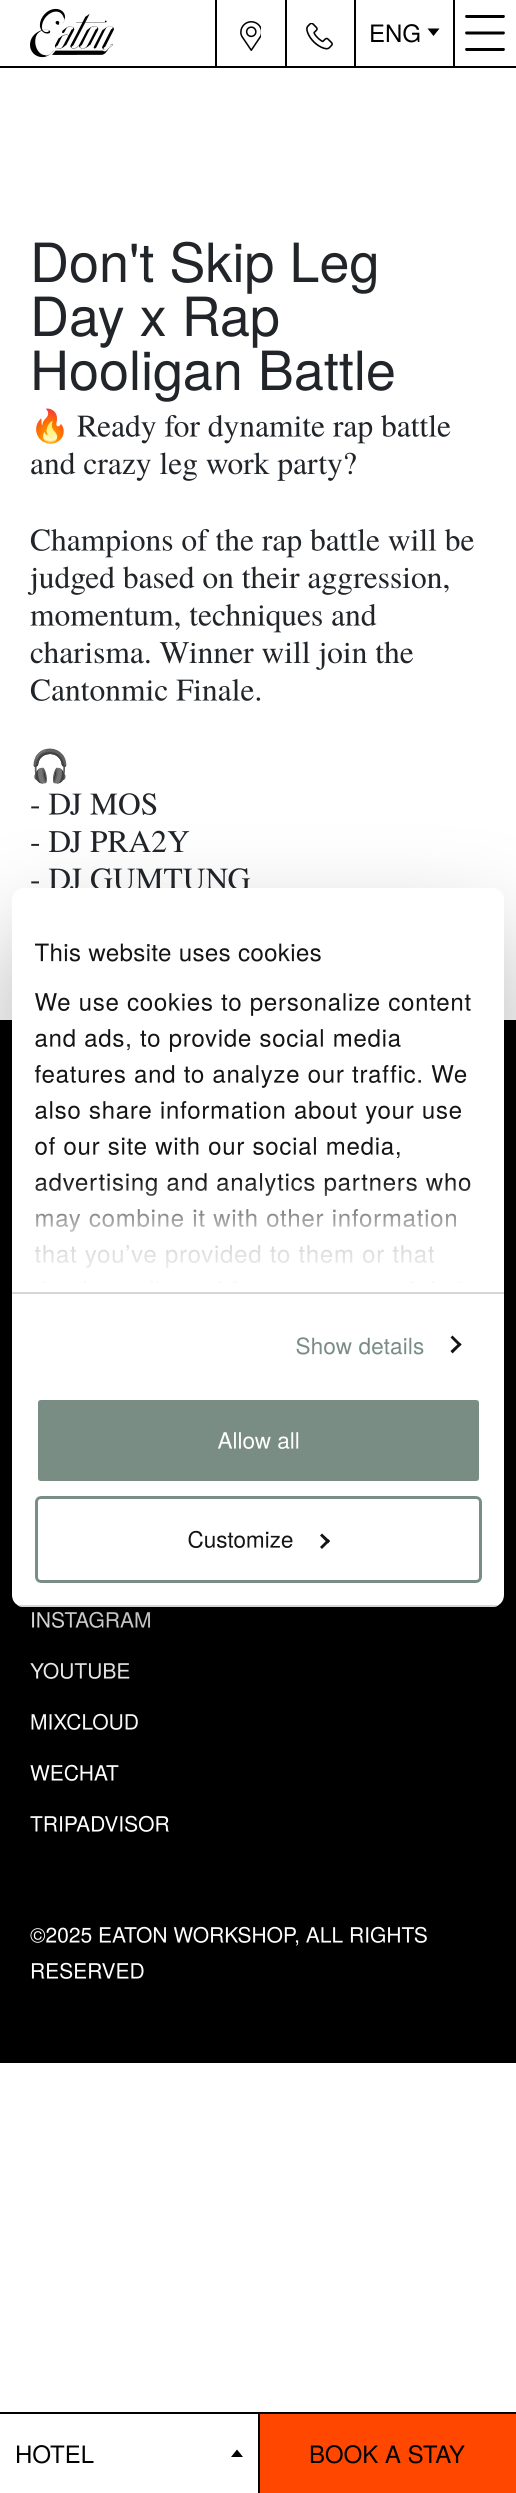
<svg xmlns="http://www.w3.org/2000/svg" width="516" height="2493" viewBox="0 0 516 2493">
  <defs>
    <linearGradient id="g1" gradientUnits="userSpaceOnUse" x1="248" y1="1291" x2="248" y2="1179"><stop offset="0" stop-color="rgb(255,255,255)"/><stop offset="0.5" stop-color="rgb(255,255,255)" stop-opacity="0.8"/><stop offset="1" stop-color="rgb(255,255,255)" stop-opacity="0"/></linearGradient>
    <clipPath id="clip1"><rect x="12" y="888" width="492" height="719" rx="12"/></clipPath>
  </defs>
  <rect width="100%" height="100%" fill="rgb(255,255,255)"/>
  <rect x="0" y="66" width="516" height="2" fill="rgb(0,0,0)"/>
  <image x="30" y="8" width="84" height="50" href="pic1.png"/>
  <rect x="215" y="0" width="2" height="66" fill="rgb(0,0,0)"/>
  <image x="240" y="21" width="21" height="30" href="pic2.png"/>
  <rect x="285" y="0" width="2" height="66" fill="rgb(0,0,0)"/>
  <image x="306" y="23" width="27" height="27" href="pic3.png"/>
  <rect x="354" y="0" width="2" height="66" fill="rgb(0,0,0)"/>
  <image x="371" y="24" width="49" height="19" href="pic4.png"/>
  <path d="M427.5 28.5H439.5L433.5 36Z" fill="rgb(0,0,0)"/>
  <rect x="453" y="0" width="2" height="66" fill="rgb(0,0,0)"/>
  <path d="M503.5 49.5H466.5M503.5 16.5H466.5M503.5 33H466.5" fill="none" stroke="rgb(0,0,0)" stroke-width="2.8" stroke-linecap="round"/>
  <image x="34" y="241" width="342" height="53" href="pic5.png"/>
  <image x="34" y="296" width="245" height="52" href="pic6.png"/>
  <image x="34" y="350" width="360" height="52" href="pic7.png"/>
  <text x="30" y="437" font-family="Noto Color Emoji" font-size="32" fill="rgb(33,37,41)">🔥</text>
  <image x="77" y="415" width="374" height="29" href="pic8.png"/>
  <image x="31" y="452" width="325" height="29" href="pic9.png"/>
  <image x="30" y="529" width="444" height="29" href="pic10.png"/>
  <image x="27" y="566" width="422" height="29" href="pic11.png"/>
  <image x="30" y="604" width="347" height="29" href="pic12.png"/>
  <image x="30" y="641" width="383" height="29" href="pic13.png"/>
  <image x="30" y="679" width="231" height="22" href="pic14.png"/>
  <text x="30" y="777" font-family="Noto Color Emoji" font-size="32" fill="rgb(33,37,41)">🎧</text>
  <image x="31" y="793" width="126" height="22" href="pic15.png"/>
  <image x="31" y="830" width="159" height="23" href="pic16.png"/>
  <image x="31" y="868" width="219" height="20" href="pic17.png"/>
  <rect x="0" y="1020" width="516" height="1043" fill="rgb(0,0,0)"/>
  <image x="32" y="1611" width="118" height="17" href="pic18.png"/>
  <image x="30" y="1662" width="100" height="17" href="pic19.png"/>
  <image x="31" y="1713" width="107" height="17" href="pic20.png"/>
  <image x="30" y="1764" width="89" height="17" href="pic21.png"/>
  <image x="30" y="1815" width="139" height="17" href="pic22.png"/>
  <image x="30" y="1926" width="397" height="20" href="pic23.png"/>
  <image x="31" y="1962" width="113" height="17" href="pic24.png"/>
  <rect x="0" y="2412" width="516" height="2" fill="rgb(0,0,0)"/>
  <image x="17" y="2445" width="77" height="19" href="pic25.png"/>
  <path d="M243 2457H231L237 2449.5Z" fill="rgb(0,0,0)"/>
  <rect x="258" y="2412" width="2" height="81" fill="rgb(0,0,0)"/>
  <rect x="260" y="2414" width="256" height="79" fill="rgb(255,71,0)"/>
  <image x="310" y="2445" width="155" height="19" href="pic26.png"/>
  <rect x="12" y="936" width="492" height="719" rx="12" fill="rgba(0,0,0,0.3)" filter="blur(51px)"/>
  <rect x="12" y="888" width="492" height="719" rx="12" fill="rgb(255,255,255)"/>
  <rect x="12" y="1292" width="492" height="2" fill="rgb(214,214,214)"/>
  <image x="35" y="943" width="286" height="19" href="pic27.png"/>
  <image x="35" y="993" width="436" height="23" href="pic28.png"/>
  <image x="35" y="1029" width="366" height="23" href="pic29.png"/>
  <image x="34" y="1065" width="433" height="23" href="pic30.png"/>
  <image x="35" y="1101" width="426" height="23" href="pic31.png"/>
  <image x="35" y="1137" width="365" height="22" href="pic32.png"/>
  <image x="35" y="1173" width="436" height="23" href="pic33.png"/>
  <image x="36" y="1209" width="420" height="23" href="pic34.png"/>
  <image x="34" y="1245" width="400" height="23" href="pic35.png"/>
  <image x="36" y="1281" width="427" height="2" href="pic36.png"/>
  <rect x="34" y="1181" width="437" height="102" fill="url(#g1)"/>
  <image x="296" y="1337" width="128" height="18" href="pic37.png"/>
  <path d="M452.5 1335.5L461.5 1344.5L459.5 1346.5L450.5 1337.5Z" fill="rgb(20,20,20)"/>
  <path d="M459.5 1342.5L461.5 1344.5L452.5 1353.5L450.5 1351Z" fill="rgb(20,20,20)"/>
  <g clip-path="url(#clip1)">
    <rect x="12" y="1605" width="492" height="2" fill="rgb(214,214,214)"/>
  </g>
  <rect x="36.5" y="1398.5" width="444" height="84" rx="4.5" fill="rgb(121,141,132)" stroke="rgb(255,255,255)" stroke-width="3"/>
  <image x="218" y="1432" width="81" height="17" href="pic38.png"/>
  <rect x="36.5" y="1497.5" width="444" height="84" rx="4.5" fill="none" stroke="rgb(121,141,132)" stroke-width="3"/>
  <image x="188" y="1530" width="105" height="18" href="pic39.png"/>
  <path d="M322 1533.5L330 1541L328 1543.5L320 1535.5Z" fill="rgb(20,20,20)"/>
  <path d="M328 1539L330 1541L322 1549L320 1547Z" fill="rgb(20,20,20)"/>
</svg>
